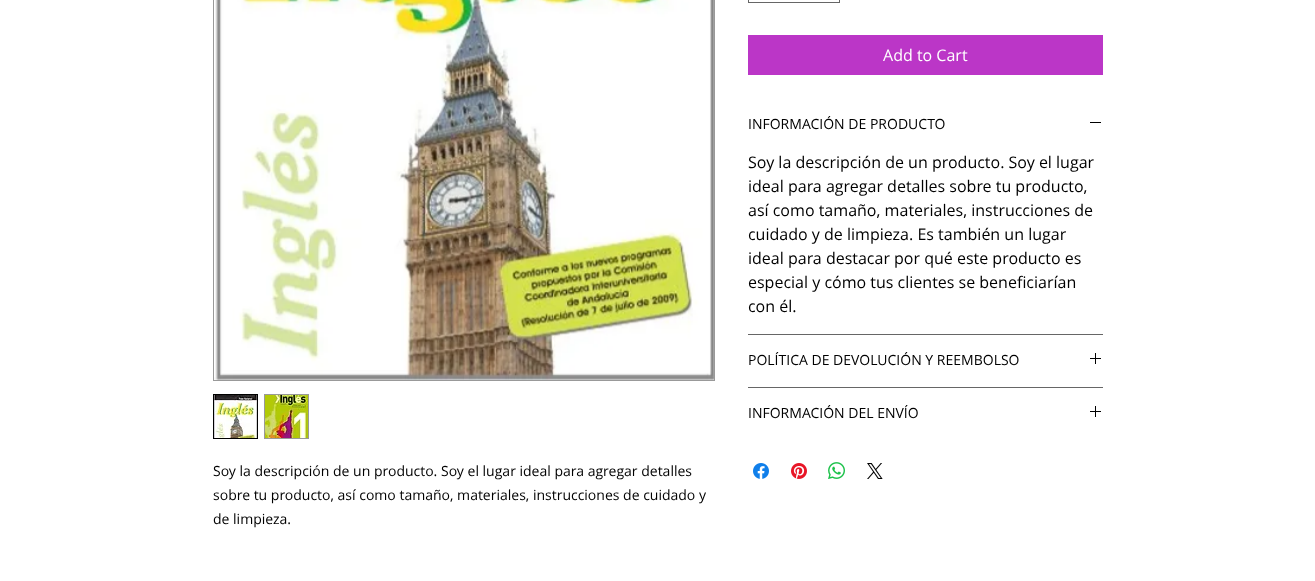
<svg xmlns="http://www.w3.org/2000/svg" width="1315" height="581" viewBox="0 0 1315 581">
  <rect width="100%" height="100%" fill="rgb(255,255,255)"/>
  <rect x="748.5" y="-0.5" width="91" height="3" fill="none" stroke="rgb(102,102,102)"/>
  <rect x="748" y="35" width="355" height="40" fill="rgb(187,54,199)"/>
  <text x="883" y="61" font-family="Open Sans" font-size="16" fill="rgb(255,255,255)">Add to Cart</text>
  <rect x="748" y="334" width="355" height="1" fill="rgb(102,102,102)"/>
  <text x="748" y="129" font-family="Open Sans" font-size="14" fill="rgb(0,0,0)">INFORMACIÓN DE PRODUCTO</text>
  <rect x="1090" y="122" width="11" height="1" fill="rgb(0,0,0)"/>
  <g font-family="Open Sans" font-size="16" fill="rgb(0,0,0)">
    <text>
      <tspan x="748" y="168">Soy la descripción de un producto. Soy el lugar</tspan>
      <tspan x="748" y="192">ideal para agregar detalles sobre tu producto,</tspan>
      <tspan x="748" y="216">así como tamaño, materiales, instrucciones de</tspan>
      <tspan x="748" y="240">cuidado y de limpieza. Es también un lugar</tspan>
      <tspan x="748" y="264">ideal para destacar por qué este producto es</tspan>
      <tspan x="748" y="288">especial y cómo tus clientes se beneficiarían</tspan>
      <tspan x="748" y="312">con él.</tspan>
    </text>
  </g>
  <rect x="748" y="387" width="355" height="1" fill="rgb(102,102,102)"/>
  <text x="748" y="365" font-family="Open Sans" font-size="14" fill="rgb(0,0,0)">POLÍTICA DE DEVOLUCIÓN Y REEMBOLSO</text>
  <image x="1090" y="353" width="11" height="11" href="pic1.png"/>
  <text x="748" y="418" font-family="Open Sans" font-size="14" fill="rgb(0,0,0)">INFORMACIÓN DEL ENVÍO</text>
  <image x="1090" y="406" width="11" height="11" href="pic1.png"/>
  <image x="753" y="463" width="16" height="16" href="pic2.png"/>
  <image x="791" y="463" width="16" height="16" href="pic3.png"/>
  <image x="828" y="462" width="17" height="17" href="pic4.png"/>
  <image x="867" y="463" width="16" height="16" href="pic5.png"/>
  <rect x="213.5" y="-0.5" width="501" height="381" fill="none" stroke="rgb(153,153,153)"/>
  <image x="214" y="0" width="500" height="380" href="pic6.png"/>
  <rect x="213.5" y="394.5" width="44" height="44" fill="none" stroke="rgb(0,0,0)"/>
  <image x="214" y="395" width="43" height="43" href="pic7.png"/>
  <rect x="264" y="394" width="45" height="45" fill="rgb(153,153,153)"/>
  <image x="265" y="395" width="43" height="43" href="pic8.png"/>
  <g font-family="Open Sans" font-size="14" fill="rgb(0,0,0)">
    <text>
      <tspan x="213" y="476">Soy la descripción de un producto. Soy el lugar ideal para agregar detalles</tspan>
      <tspan x="213" y="500">sobre tu producto, así como tamaño, materiales, instrucciones de cuidado y</tspan>
      <tspan x="213" y="524">de limpieza.</tspan>
    </text>
  </g>
</svg>
